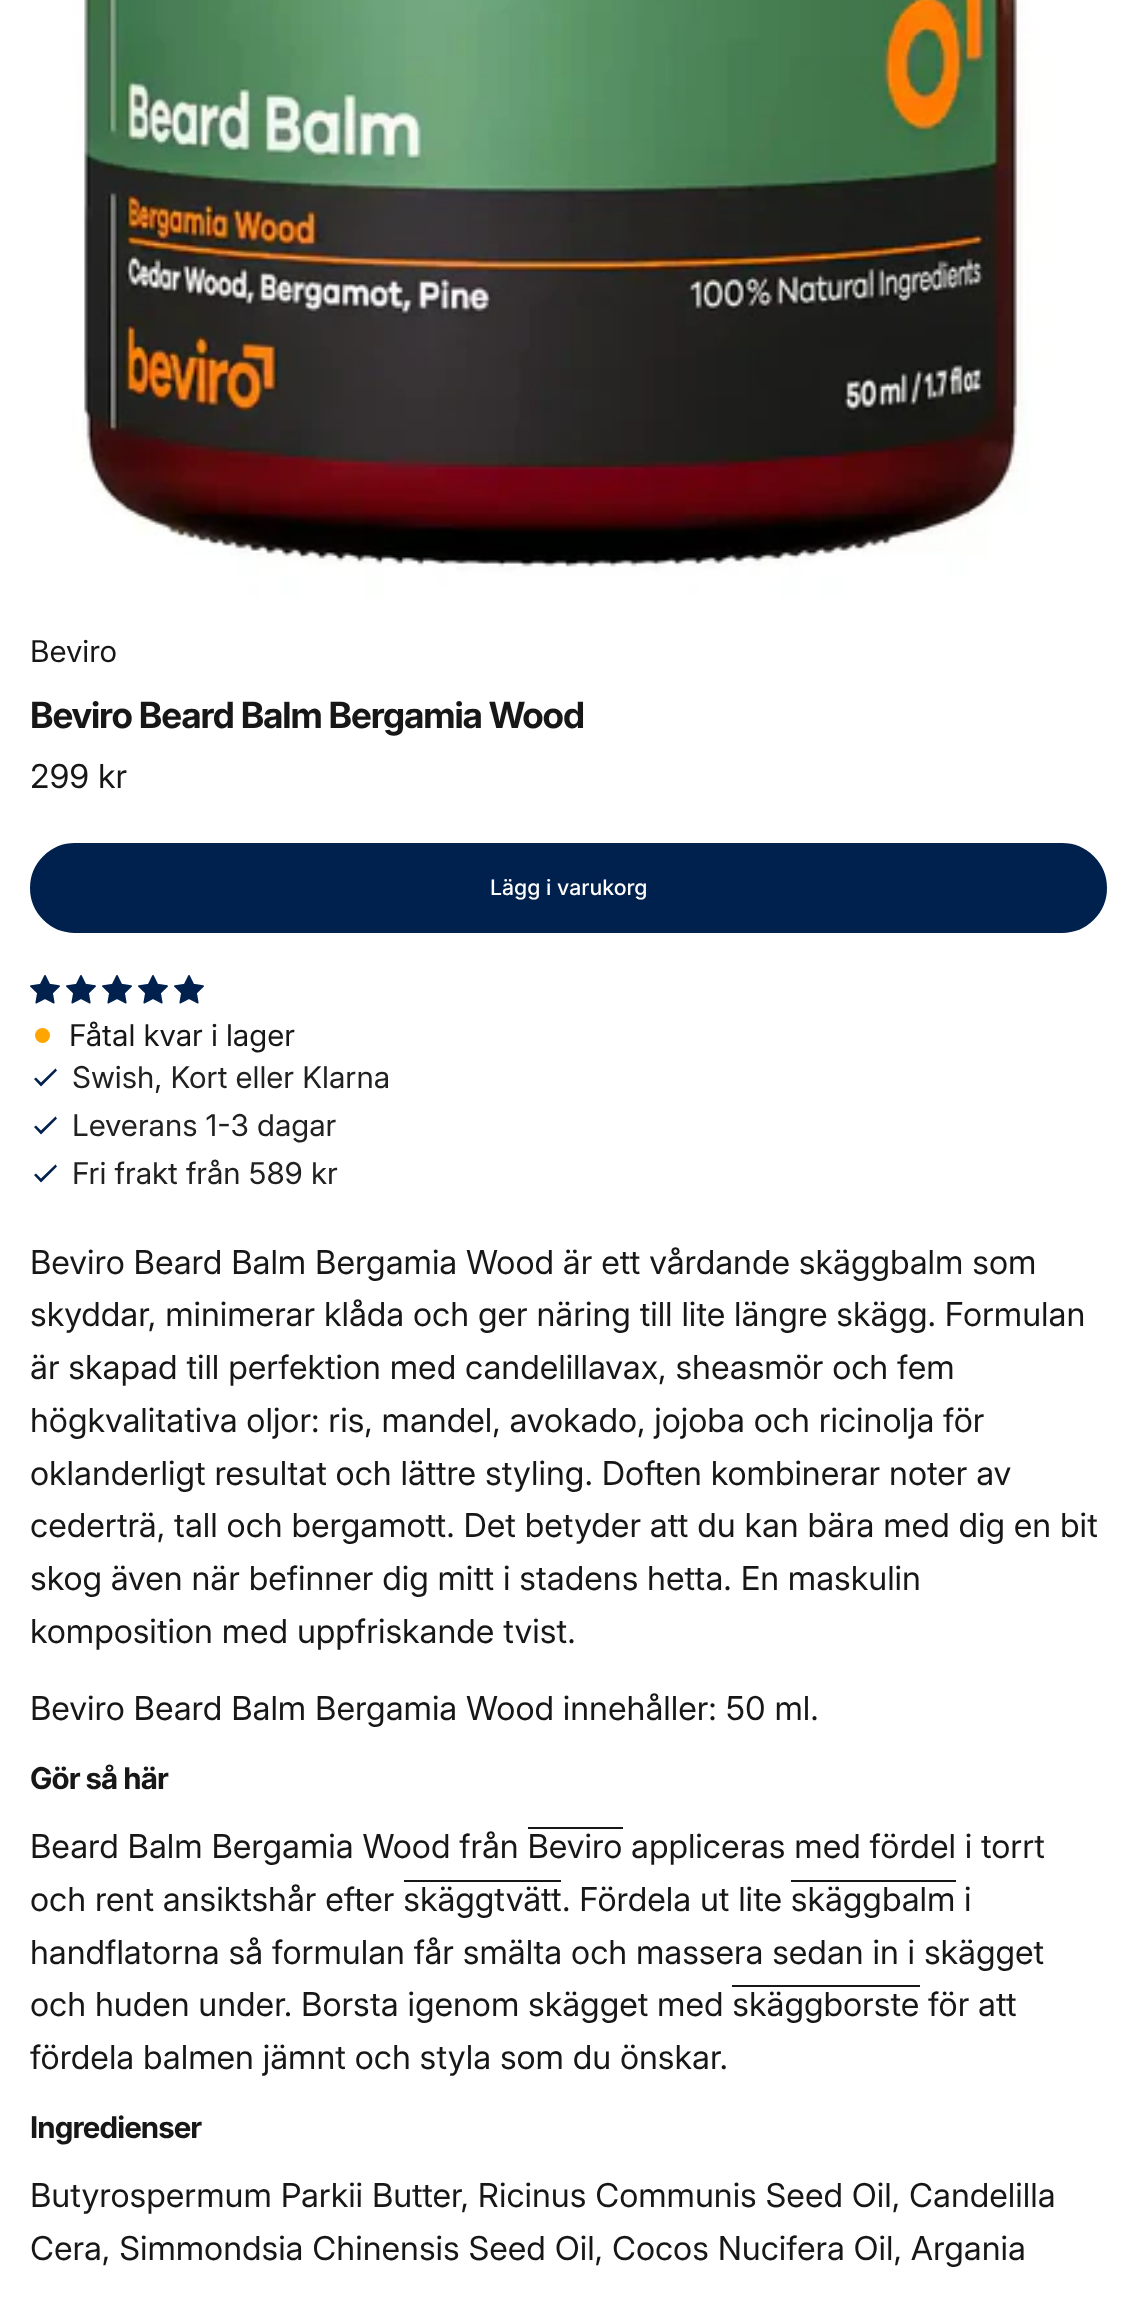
<svg xmlns="http://www.w3.org/2000/svg" width="1137" height="2302" viewBox="0 0 1137 2302">
  <rect width="100%" height="100%" fill="rgb(255,255,255)"/>
  <rect x="30" y="-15" width="1041" height="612" rx="15" fill="rgb(250,250,250)"/>
  <image x="30" y="0" width="1041" height="597" href="pic1.png"/>
  <text x="30" y="662" font-family="Inter" font-size="30" fill="rgb(23,23,23)">Beviro</text>
  <text x="30" y="728" font-family="Inter" font-size="36" font-weight="bold" letter-spacing="-1.1" fill="rgb(23,23,23)">Beviro Beard Balm Bergamia Wood</text>
  <text x="30" y="788" font-family="'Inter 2'" font-size="33" fill="rgb(23,23,23)">299 kr</text>
  <rect x="31.5" y="844.5" width="1074" height="87" rx="43.5" fill="rgb(0,33,77)" stroke="rgb(0,33,77)" stroke-width="3"/>
  <text x="490" y="895" font-family="Inter" font-size="21.25" font-weight="500" fill="rgb(255,255,255)">Lägg i varukorg</text>
  <image x="30" y="975" width="30" height="29" href="pic2.png"/>
  <image x="66" y="975" width="30" height="29" href="pic2.png"/>
  <image x="102" y="975" width="30" height="29" href="pic2.png"/>
  <image x="138" y="975" width="30" height="29" href="pic2.png"/>
  <image x="174" y="975" width="30" height="29" href="pic2.png"/>
  <circle cx="42.5" cy="1035.5" r="7.5" fill="rgb(255,165,0)"/>
  <text x="69" y="1046" font-family="Inter" font-size="30" fill="rgb(23,23,23)">Fåtal kvar i lager</text>
  <path d="M55.5 1068.5L41 1082.5L36 1077.5L34 1079L41 1086.5L57 1070.5Z" fill="rgb(0,33,77)"/>
  <text x="72" y="1088" font-family="Inter" font-size="30" fill="rgb(33,33,33)">Swish, Kort eller Klarna</text>
  <path d="M55.5 1116.5L41 1130.5L36 1125.5L34 1127L41 1134.5L57 1118.5Z" fill="rgb(0,33,77)"/>
  <text x="72" y="1136" font-family="Inter" font-size="30" fill="rgb(33,33,33)">Leverans 1-3 dagar</text>
  <path d="M55.5 1164.5L41 1178.5L36 1173.5L34 1175L41 1182.5L57 1166.5Z" fill="rgb(0,33,77)"/>
  <text x="72" y="1184" font-family="Inter" font-size="30" fill="rgb(33,33,33)">Fri frakt från 589 kr</text>
  <g font-family="'Inter 2'" font-size="33" fill="rgb(23,23,23)">
    <text>
      <tspan x="30" y="1274">Beviro Beard Balm Bergamia Wood är ett vårdande skäggbalm som</tspan>
      <tspan x="30" y="1326">skyddar, minimerar klåda och ger näring till lite längre skägg. Formulan</tspan>
      <tspan x="30" y="1379">är skapad till perfektion med candelillavax, sheasmör och fem</tspan>
      <tspan x="30" y="1432">högkvalitativa oljor: ris, mandel, avokado, jojoba och ricinolja för</tspan>
      <tspan x="30" y="1485">oklanderligt resultat och lättre styling. Doften kombinerar noter av</tspan>
      <tspan x="30" y="1537">cederträ, tall och bergamott. Det betyder att du kan bära med dig en bit</tspan>
      <tspan x="30" y="1590">skog även när befinner dig mitt i stadens hetta. En maskulin</tspan>
      <tspan x="30" y="1643">komposition med uppfriskande tvist.</tspan>
    </text>
    <text x="30" y="1720">Beviro Beard Balm Bergamia Wood innehåller: 50 ml.</text>
  </g>
  <text x="30" y="1789" font-family="'Inter 2'" font-size="30" font-weight="bold" letter-spacing="-0.9" fill="rgb(23,23,23)">Gör så här</text>
  <rect x="528" y="1827" width="95" height="2" fill="rgb(23,23,23)"/>
  <g font-family="'Inter 2'" font-size="33" fill="rgb(23,23,23)">
    <text x="30" y="1858">Beard Balm Bergamia Wood från Beviro</text>
    <text x="631" y="1858">appliceras med fördel i torrt</text>
  </g>
  <rect x="404" y="1880" width="157" height="2" fill="rgb(23,23,23)"/>
  <rect x="791" y="1880" width="165" height="2" fill="rgb(23,23,23)"/>
  <g font-family="'Inter 2'" font-size="33" fill="rgb(23,23,23)">
    <text x="30" y="1911">och rent ansiktshår efter skäggtvätt</text>
    <text x="562" y="1911">. Fördela ut lite skäggbalm</text>
    <text x="964" y="1911">i</text>
    <text x="30" y="1964">handflatorna så formulan får smälta och massera sedan in i skägget</text>
  </g>
  <rect x="732" y="1985" width="188" height="2" fill="rgb(23,23,23)"/>
  <g font-family="'Inter 2'" font-size="33" fill="rgb(23,23,23)">
    <text x="30" y="2016">och huden under. Borsta igenom skägget med skäggborste</text>
    <text x="928" y="2016">för att</text>
    <text x="30" y="2069">fördela balmen jämnt och styla som du önskar.</text>
  </g>
  <text x="30" y="2138" font-family="'Inter 2'" font-size="30" font-weight="bold" letter-spacing="-0.9" fill="rgb(23,23,23)">Ingredienser</text>
  <g font-family="'Inter 2'" font-size="33" fill="rgb(23,23,23)">
    <text>
      <tspan x="30" y="2207">Butyrospermum Parkii Butter, Ricinus Communis Seed Oil, Candelilla</tspan>
      <tspan x="30" y="2260">Cera, Simmondsia Chinensis Seed Oil, Cocos Nucifera Oil, Argania</tspan>
    </text>
  </g>
</svg>
